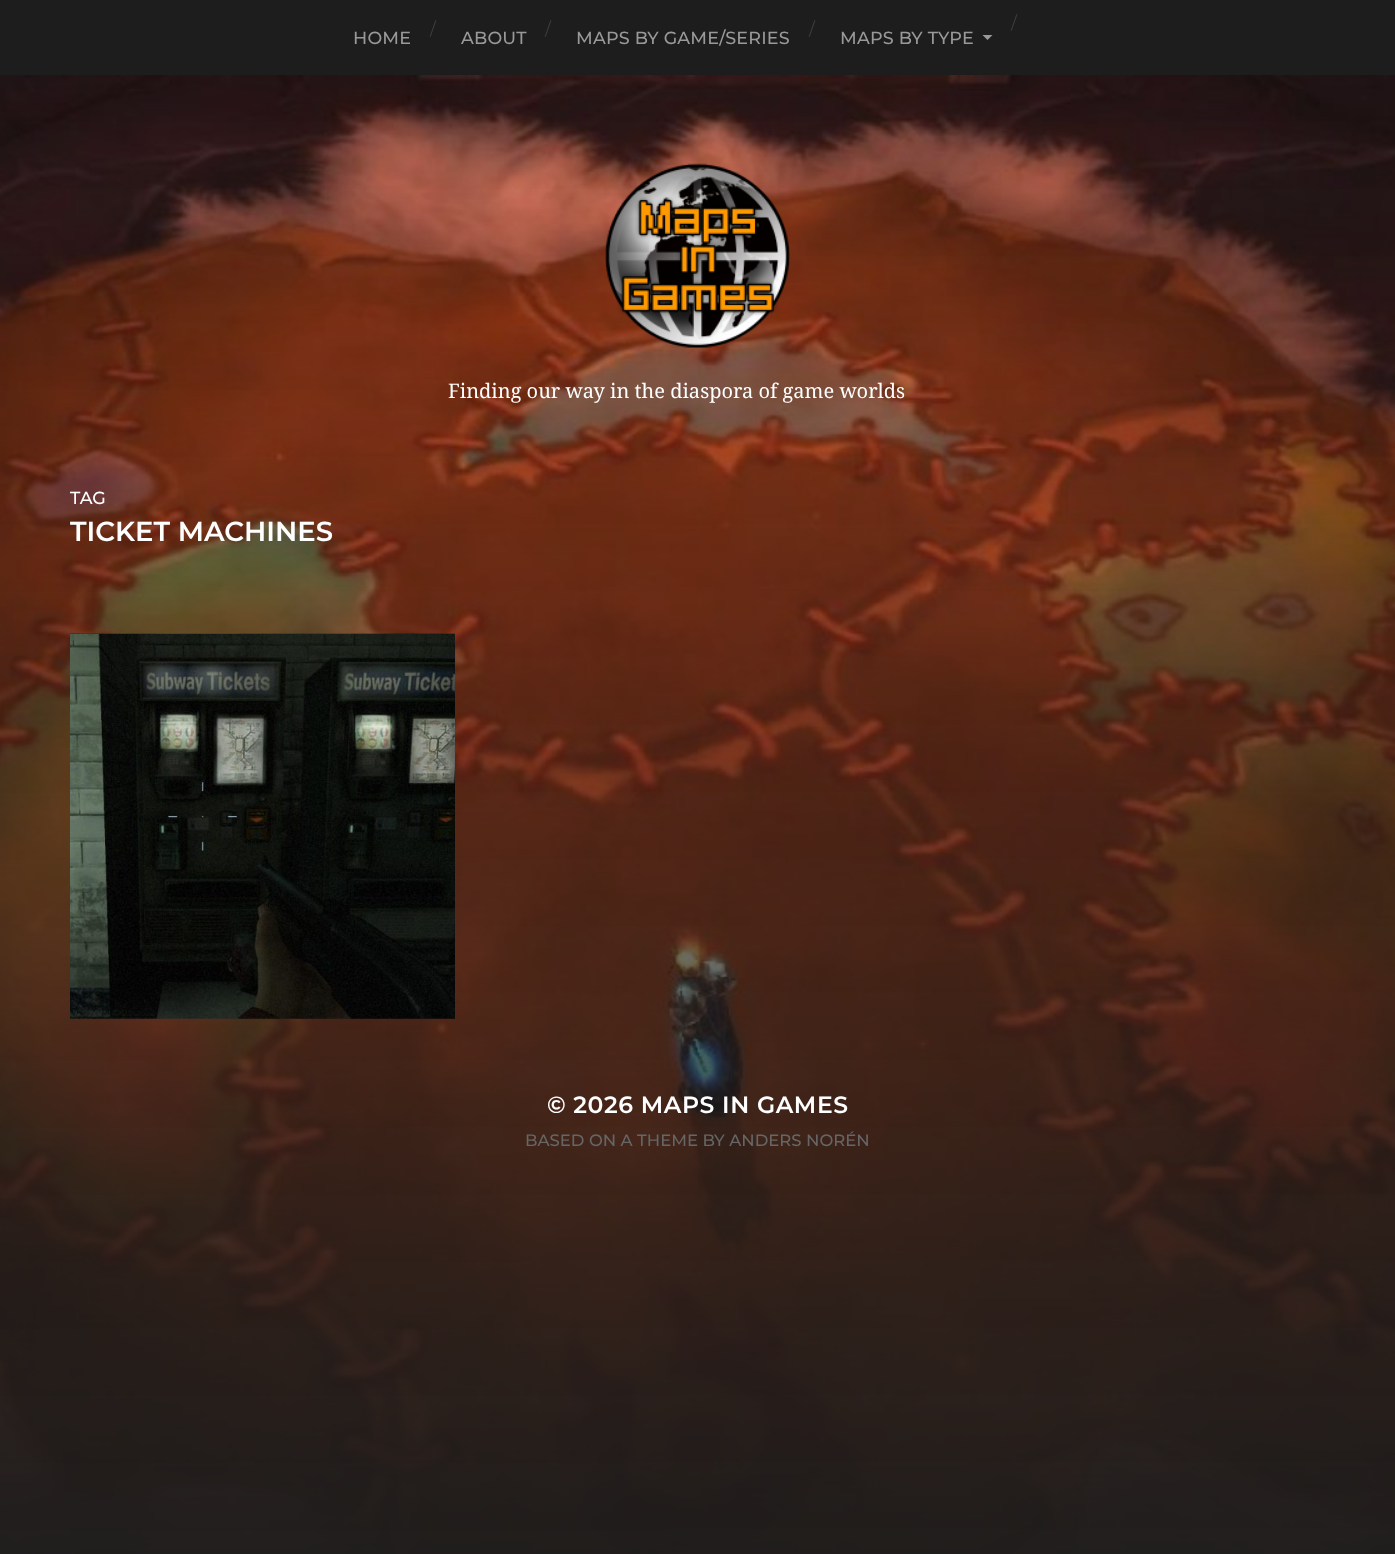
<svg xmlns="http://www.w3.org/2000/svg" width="1395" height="1554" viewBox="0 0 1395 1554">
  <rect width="100%" height="100%" fill="rgb(29,29,29)"/>
  <text x="353" y="44" font-family="Montserrat" font-size="17.5" font-weight="500" letter-spacing="0.2" fill="rgb(153,153,153)">HOME</text>
  <text x="430" y="35" font-family="Montserrat" font-size="17.5" fill="rgb(61,61,61)">/</text>
  <text x="461" y="44" font-family="Montserrat" font-size="17.5" font-weight="500" letter-spacing="0.2" fill="rgb(153,153,153)">ABOUT</text>
  <text x="545" y="35" font-family="Montserrat" font-size="17.5" fill="rgb(61,61,61)">/</text>
  <text x="576" y="44" font-family="Montserrat" font-size="17.5" font-weight="500" letter-spacing="0.2" fill="rgb(153,153,153)">MAPS BY GAME/SERIES</text>
  <text x="809" y="35" font-family="Montserrat" font-size="17.5" fill="rgb(61,61,61)">/</text>
  <text x="840" y="44" font-family="Montserrat" font-size="17.5" font-weight="500" letter-spacing="0.2" fill="rgb(153,153,153)">MAPS BY TYPE</text>
  <path d="M982.5 35H992.5L987.5 40Z" fill="rgb(153,153,153)"/>
  <text x="1011" y="29" font-family="Montserrat" font-size="17.5" fill="rgb(61,61,61)">/</text>
  <image x="0" y="75" width="1395" height="1479" href="pic1.png"/>
  <image x="605" y="163" width="185" height="185" href="pic2.png"/>
  <text x="448" y="398" font-family="Droid Serif" font-size="20" fill="rgb(255,255,255)">Finding our way in the diaspora of game worlds</text>
  <text x="70" y="504" font-family="Montserrat" font-size="17.5" font-weight="500" fill="rgb(255,255,255)">TAG</text>
  <text x="70" y="541" font-family="Montserrat" font-size="27.5" font-weight="600" fill="rgb(255,255,255)">TICKET MACHINES</text>
  <image x="70" y="633" width="385" height="386" href="pic3.png"/>
  <text x="547" y="1113" font-family="Montserrat" font-size="23.5" font-weight="600" letter-spacing="0.6" fill="rgb(255,255,255)">© 2026 MAPS IN GAMES</text>
  <text x="525" y="1146" font-family="Montserrat" font-size="16.5" font-weight="500" fill="rgb(102,102,102)">BASED ON A THEME BY ANDERS NORÉN</text>
</svg>
